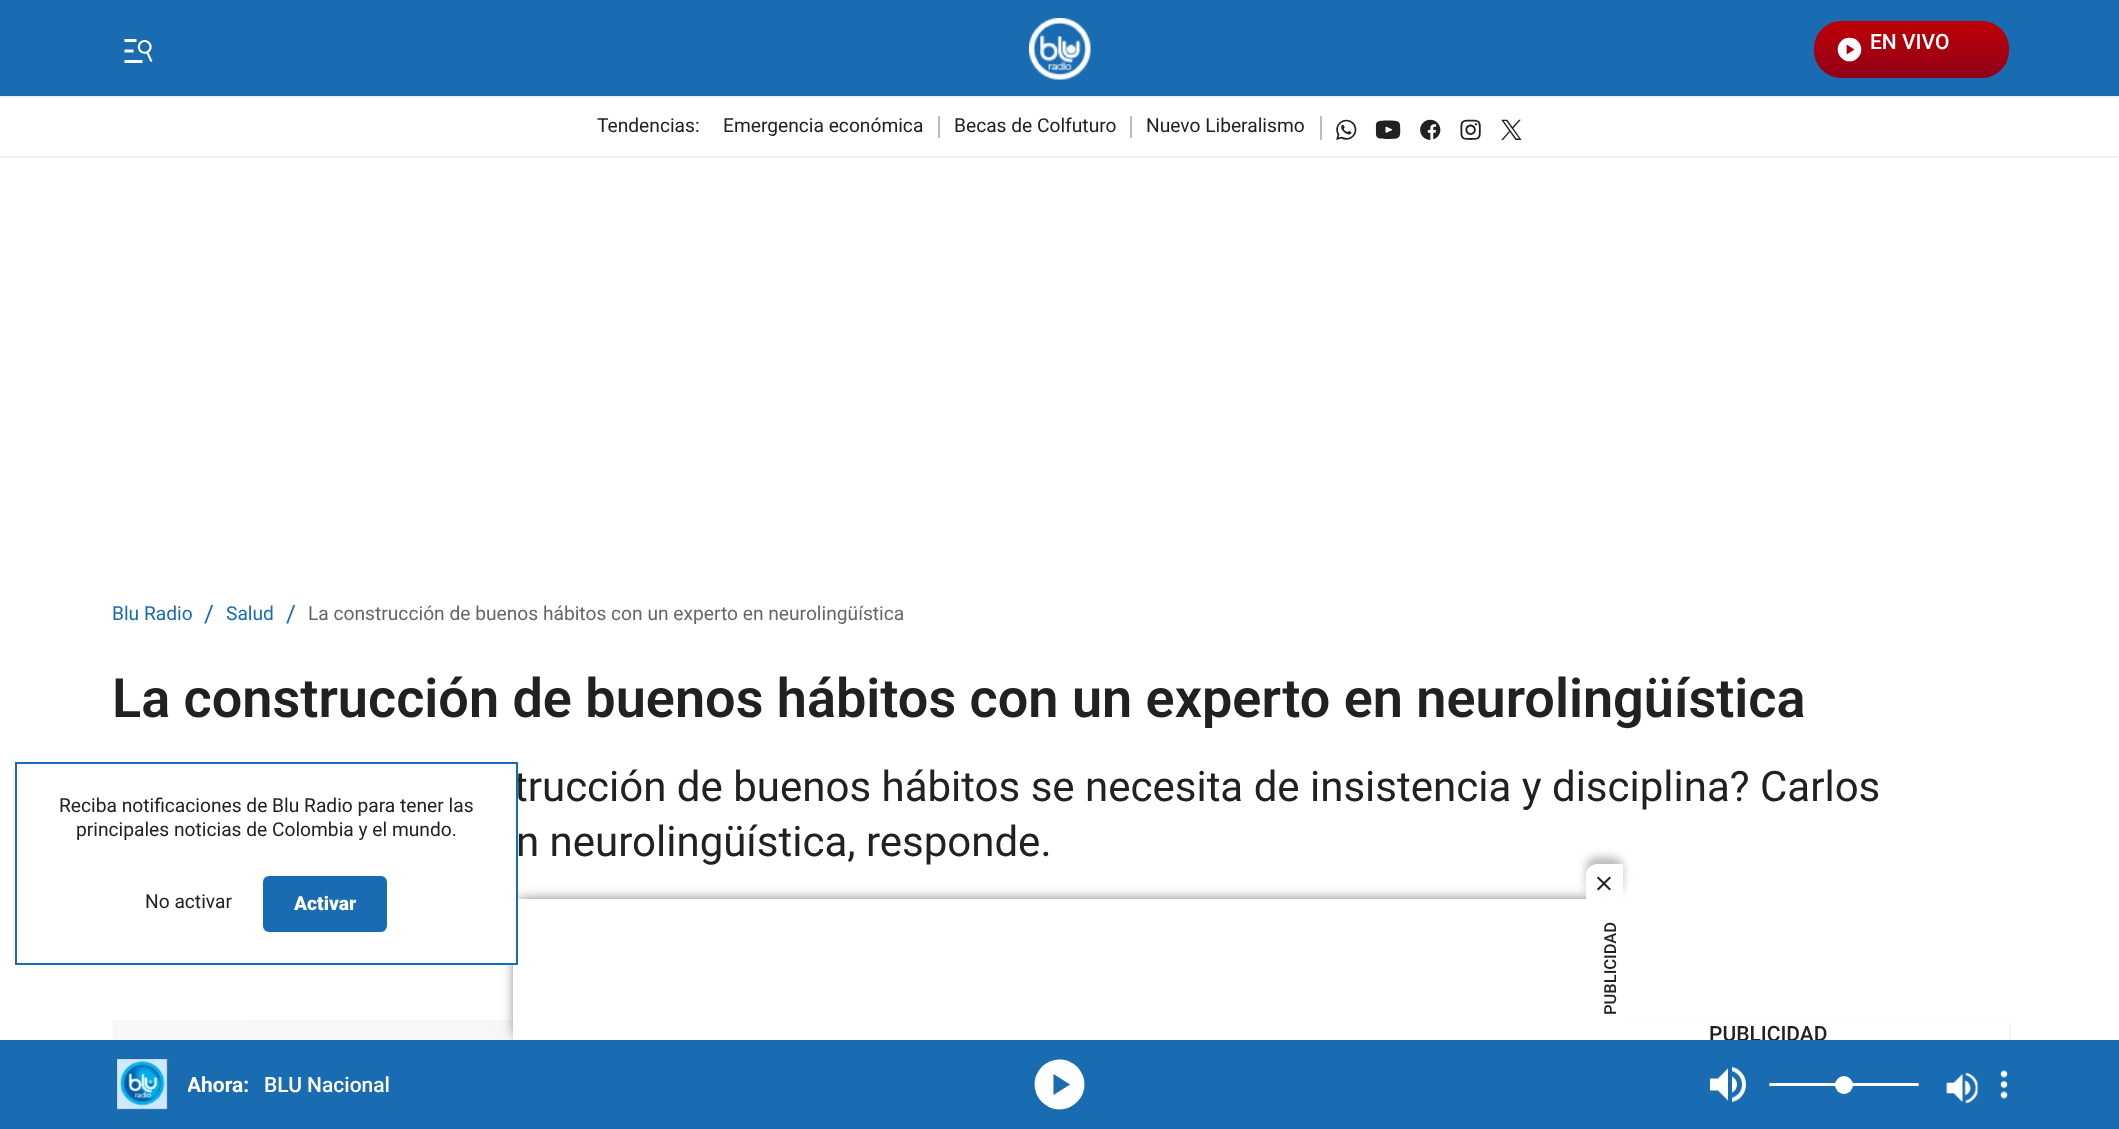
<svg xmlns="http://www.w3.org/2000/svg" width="2119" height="1129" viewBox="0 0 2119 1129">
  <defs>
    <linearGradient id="g1" gradientUnits="userSpaceOnUse" x1="1911" y1="21" x2="1911" y2="78"><stop offset="0" stop-color="rgb(189,0,5)"/><stop offset="1" stop-color="rgb(145,0,25)"/></linearGradient>
    <clipPath id="clip1"><rect x="188" y="1071" width="202" height="27"/></clipPath>
  </defs>
  <rect width="100%" height="100%" fill="rgb(255,255,255)"/>
  <rect x="0" y="0" width="2119" height="96" fill="rgb(25,107,178)"/>
  <rect x="0" y="96" width="2119" height="2" fill="rgb(241,241,241)"/>
  <image x="124" y="39" width="29" height="24" href="pic1.png"/>
  <image x="1029" y="18" width="62" height="62" href="pic2.png"/>
  <rect x="1814" y="21" width="195" height="57" rx="27" fill="url(#g1)"/>
  <image x="1837" y="37" width="25" height="25" href="pic3.png"/>
  <text x="1870" y="49" font-family="Roboto" font-size="21" font-weight="500" fill="rgb(255,255,255)">EN VIVO</text>
  <rect x="0" y="156" width="2119" height="2" fill="rgb(241,241,241)"/>
  <g font-family="Roboto" font-size="19.2" fill="rgb(33,33,33)">
    <text x="597" y="132">Tendencias:</text>
    <text x="723" y="132">Emergencia económica</text>
  </g>
  <rect x="938" y="116" width="2" height="22" fill="rgb(188,188,188)"/>
  <text x="954" y="132" font-family="Roboto" font-size="19.2" fill="rgb(33,33,33)">Becas de Colfuturo</text>
  <rect x="1130" y="116" width="2" height="22" fill="rgb(188,188,188)"/>
  <text x="1146" y="132" font-family="Roboto" font-size="19.2" fill="rgb(33,33,33)">Nuevo Liberalismo</text>
  <rect x="1320" y="116" width="2" height="24" fill="rgb(188,188,188)"/>
  <image x="1336" y="119" width="21" height="21" href="pic4.png"/>
  <image x="1375" y="120" width="26" height="19" href="pic5.png"/>
  <image x="1420" y="119" width="21" height="21" href="pic6.png"/>
  <image x="1460" y="119" width="21" height="21" href="pic7.png"/>
  <image x="1501" y="119" width="21" height="21" href="pic8.png"/>
  <text x="112" y="620" font-family="Roboto" font-size="19.2" fill="rgb(25,107,178)">Blu Radio</text>
  <text x="204" y="622" font-family="Roboto" font-size="24" fill="rgb(25,107,178)">/</text>
  <text x="226" y="620" font-family="Roboto" font-size="19.2" fill="rgb(25,107,178)">Salud</text>
  <text x="286" y="622" font-family="Roboto" font-size="24" fill="rgb(25,107,178)">/</text>
  <text x="308" y="620" font-family="Roboto" font-size="19.2" fill="rgb(102,102,102)">La construcción de buenos hábitos con un experto en neurolingüística</text>
  <text x="112" y="717" font-family="Roboto" font-size="54" font-weight="600" fill="rgb(33,33,33)">La construcción de buenos hábitos con un experto en neurolingüística</text>
  <g font-family="Roboto" font-size="42" fill="rgb(33,33,33)">
    <text x="514" y="801">trucción de buenos hábitos se necesita de insistencia y disciplina? Carlos</text>
    <text x="516" y="856">n neurolingüística, responde.</text>
  </g>
  <image x="112" y="1020" width="401" height="20" href="pic9.png"/>
  <rect x="1529" y="1023" width="480" height="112" fill="rgba(86,86,86,0.18)" filter="blur(2px)"/>
  <rect x="1623" y="1020" width="386" height="20" fill="rgb(255,255,255)"/>
  <text x="1709" y="1041" font-family="Roboto" font-size="21" font-weight="500" fill="rgb(33,33,33)">PUBLICIDAD</text>
  <rect x="518" y="903" width="1086" height="132" fill="rgb(33,33,33)" filter="blur(7.5px)"/>
  <rect x="513" y="899" width="1091" height="141" fill="rgb(255,255,255)"/>
  <rect x="501" y="778" width="15" height="185" fill="rgb(255,255,255)"/>
  <rect x="16" y="763" width="501" height="201" fill="none" stroke="rgb(25,107,178)" stroke-width="2"/>
  <g font-family="Roboto" font-size="19.2" fill="rgb(33,33,33)">
    <text x="59" y="812">Reciba notificaciones de Blu Radio para tener las</text>
    <text x="76" y="836">principales noticias de Colombia y el mundo.</text>
    <text x="145" y="908">No activar</text>
  </g>
  <rect x="264" y="877" width="122" height="54" rx="5" fill="rgb(25,107,178)" stroke="rgb(25,107,178)" stroke-width="2"/>
  <text x="294" y="910" font-family="Roboto" font-size="19.2" font-weight="900" fill="rgb(255,255,255)">Activar</text>
  <rect x="1604" y="902" width="19" height="138" fill="rgb(255,255,255)"/>
  <rect x="1586" y="857" width="37" height="37" rx="11" fill="rgba(33,33,33,0.3)" filter="blur(4.5px)"/>
  <path d="M1597 864H1623V902H1586V875C1586 869 1591 864 1597 864Z" fill="rgb(255,255,255)"/>
  <image x="1597" y="876" width="14" height="15" href="pic10.png"/>
  <text x="1616" y="1015" transform="rotate(-90 1616 1015)" font-family="Roboto" font-size="16.5" font-weight="500" fill="rgb(33,33,33)">PUBLICIDAD</text>
  <rect x="0" y="1040" width="2119" height="89" fill="rgb(25,107,178)"/>
  <image x="116" y="1058" width="53" height="53" href="pic11.png"/>
  <g clip-path="url(#clip1)">
    <text x="187" y="1092" font-family="Roboto" font-size="21" font-weight="bold" fill="rgb(255,255,255)">Ahora:</text>
  </g>
  <text x="264" y="1092" font-family="Roboto" font-size="21" font-weight="500" fill="rgb(255,255,255)">BLU Nacional</text>
  <image x="1034" y="1059" width="51" height="51" href="pic12.png"/>
  <image x="1710" y="1066" width="36" height="37" href="pic13.png"/>
  <rect x="1769" y="1083" width="150" height="3" rx="1.5" fill="rgb(255,255,255)"/>
  <circle cx="1844" cy="1085" r="9" fill="rgb(255,255,255)"/>
  <image x="1946" y="1072" width="32" height="31" href="pic14.png"/>
  <image x="2000" y="1070" width="8" height="29" href="pic15.png"/>
</svg>
